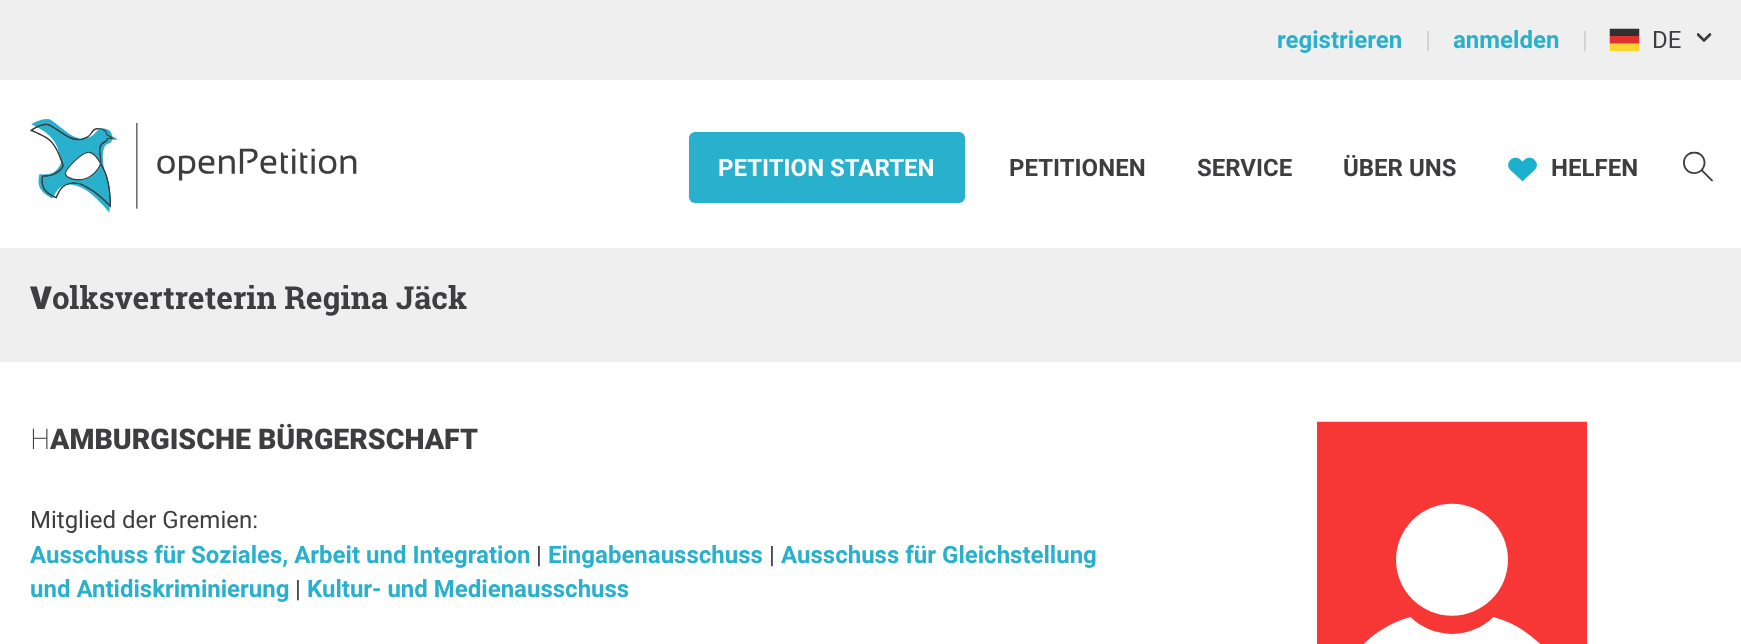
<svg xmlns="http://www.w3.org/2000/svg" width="1741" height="644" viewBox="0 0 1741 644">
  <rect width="100%" height="100%" fill="rgb(255,255,255)"/>
  <rect x="0" y="0" width="1741" height="80" fill="rgb(239,239,239)"/>
  <text x="1277" y="48" font-family="Roboto" font-size="24" font-weight="bold" fill="rgb(41,176,204)">registrieren</text>
  <text x="1425" y="48" font-family="Roboto" font-size="24" fill="rgb(207,207,207)">|</text>
  <text x="1453" y="48" font-family="Roboto" font-size="24" font-weight="bold" fill="rgb(41,176,204)">anmelden</text>
  <text x="1582" y="48" font-family="Roboto" font-size="24" fill="rgb(207,207,207)">|</text>
  <image x="1609" y="28" width="31" height="23" href="pic1.png"/>
  <text x="1652" y="48" font-family="Roboto" font-size="24" fill="rgb(62,61,64)">DE</text>
  <image x="1697" y="33" width="15" height="9" href="pic2.png"/>
  <image x="30" y="119" width="327" height="94" href="pic3.png"/>
  <rect x="689" y="132" width="276" height="71" rx="6" fill="rgb(41,176,204)"/>
  <text x="718" y="176" font-family="Roboto" font-size="24" font-weight="bold" fill="rgb(255,255,255)">PETITION STARTEN</text>
  <g font-family="Roboto" font-size="24" font-weight="bold" fill="rgb(62,61,64)">
    <text x="1009" y="176">PETITIONEN</text>
    <text x="1197" y="176">SERVICE</text>
    <text x="1343" y="176">ÜBER UNS</text>
  </g>
  <image x="1508" y="157" width="29" height="25" href="pic4.png"/>
  <text x="1551" y="176" font-family="Roboto" font-size="24" font-weight="bold" fill="rgb(62,61,64)">HELFEN</text>
  <image x="1683" y="151" width="30" height="31" href="pic5.png"/>
  <rect x="0" y="248" width="1741" height="114" fill="rgb(239,239,239)"/>
  <text x="30" y="309" font-family="Noto Sans" font-size="31.5" font-weight="900" fill="rgb(62,61,64)">V</text>
  <text x="52" y="309" font-family="Roboto Slab" font-size="31.5" font-weight="bold" fill="rgb(62,61,64)">olksvertreterin Regina Jäck</text>
  <text x="30" y="449" font-family="Noto Sans" font-size="28.5" font-weight="200" fill="rgb(62,61,64)">H</text>
  <text x="50" y="449" font-family="Roboto" font-size="28.5" font-weight="900" fill="rgb(62,61,64)">AMBURGISCHE BÜRGERSCHAFT</text>
  <text x="30" y="528" font-family="Roboto" font-size="24" fill="rgb(62,61,64)">Mitglied der Gremien:</text>
  <text x="30" y="563" font-family="Roboto" font-size="24" font-weight="bold" fill="rgb(41,176,204)">Ausschuss für Soziales, Arbeit und Integration</text>
  <text x="536" y="563" font-family="Roboto" font-size="24" fill="rgb(62,61,64)">|</text>
  <text x="548" y="563" font-family="Roboto" font-size="24" font-weight="bold" fill="rgb(41,176,204)">Eingabenausschuss</text>
  <text x="769" y="563" font-family="Roboto" font-size="24" fill="rgb(62,61,64)">|</text>
  <g font-family="Roboto" font-size="24" font-weight="bold" fill="rgb(41,176,204)">
    <text x="781" y="563">Ausschuss für Gleichstellung</text>
    <text x="30" y="597">und Antidiskriminierung</text>
  </g>
  <text x="295" y="597" font-family="Roboto" font-size="24" fill="rgb(62,61,64)">|</text>
  <text x="307" y="597" font-family="Roboto" font-size="24" font-weight="bold" fill="rgb(41,176,204)">Kultur- und Medienausschuss</text>
  <image x="1317" y="421" width="270" height="223" href="pic6.png"/>
</svg>
